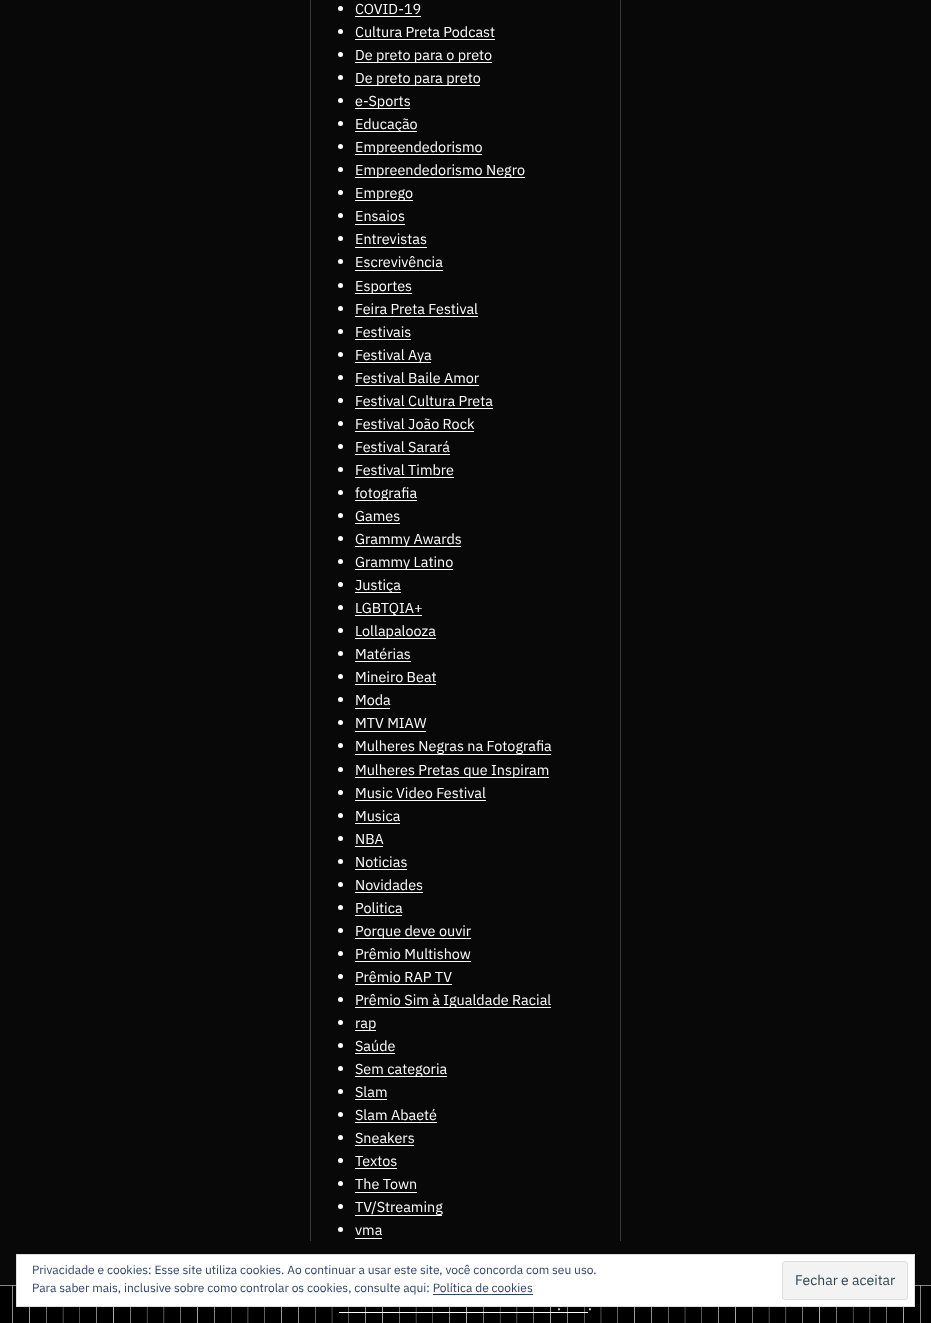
<svg xmlns="http://www.w3.org/2000/svg" width="931" height="1323" viewBox="0 0 931 1323">
  <rect width="100%" height="100%" fill="rgb(0,0,0)"/>
  <rect x="0" y="0" width="931" height="1285" fill="rgb(8,8,8)"/>
  <rect x="310" y="0" width="1" height="1241" fill="rgb(57,57,57)"/>
  <rect x="620" y="0" width="1" height="1241" fill="rgb(57,57,57)"/>
  <circle cx="340.5" cy="8.5" r="2.5" fill="rgb(255,255,255)"/>
  <text x="355" y="14" font-family="IBM Plex Sans" font-size="14.4" fill="rgb(255,255,255)">COVID-19</text>
  <rect x="355" y="16" width="66" height="1" fill="rgb(255,255,255)"/>
  <circle cx="340.5" cy="31.5" r="2.5" fill="rgb(255,255,255)"/>
  <text x="355" y="37" font-family="IBM Plex Sans" font-size="14.4" fill="rgb(255,255,255)">Cultura Preta Podcast</text>
  <rect x="355" y="39" width="140" height="1" fill="rgb(255,255,255)"/>
  <circle cx="340.5" cy="54.5" r="2.5" fill="rgb(255,255,255)"/>
  <rect x="355" y="62" width="137" height="1" fill="rgb(255,255,255)"/>
  <text x="355" y="60" font-family="IBM Plex Sans" font-size="14.4" fill="rgb(255,255,255)">De preto para o preto</text>
  <circle cx="340.5" cy="77.5" r="2.5" fill="rgb(255,255,255)"/>
  <rect x="355" y="85" width="125" height="1" fill="rgb(255,255,255)"/>
  <text x="355" y="83" font-family="IBM Plex Sans" font-size="14.4" fill="rgb(255,255,255)">De preto para preto</text>
  <circle cx="340.5" cy="100.5" r="2.5" fill="rgb(255,255,255)"/>
  <rect x="355" y="108" width="55" height="1" fill="rgb(255,255,255)"/>
  <text x="355" y="106" font-family="IBM Plex Sans" font-size="14.4" fill="rgb(255,255,255)">e-Sports</text>
  <circle cx="340.5" cy="123.5" r="2.5" fill="rgb(255,255,255)"/>
  <rect x="355" y="131" width="62" height="1" fill="rgb(255,255,255)"/>
  <text x="355" y="129" font-family="IBM Plex Sans" font-size="14.4" fill="rgb(255,255,255)">Educação</text>
  <circle cx="340.5" cy="146.5" r="2.5" fill="rgb(255,255,255)"/>
  <rect x="355" y="154" width="127" height="1" fill="rgb(255,255,255)"/>
  <text x="355" y="152" font-family="IBM Plex Sans" font-size="14.4" fill="rgb(255,255,255)">Empreendedorismo</text>
  <circle cx="340.5" cy="169.5" r="2.5" fill="rgb(255,255,255)"/>
  <rect x="355" y="177" width="170" height="1" fill="rgb(255,255,255)"/>
  <text x="355" y="175" font-family="IBM Plex Sans" font-size="14.4" fill="rgb(255,255,255)">Empreendedorismo Negro</text>
  <circle cx="340.5" cy="192.5" r="2.5" fill="rgb(255,255,255)"/>
  <rect x="355" y="200" width="58" height="1" fill="rgb(255,255,255)"/>
  <text x="355" y="198" font-family="IBM Plex Sans" font-size="14.4" fill="rgb(255,255,255)">Emprego</text>
  <circle cx="340.5" cy="215.5" r="2.5" fill="rgb(255,255,255)"/>
  <text x="355" y="221" font-family="IBM Plex Sans" font-size="14.4" fill="rgb(255,255,255)">Ensaios</text>
  <rect x="355" y="224" width="50" height="1" fill="rgb(255,255,255)"/>
  <circle cx="340.5" cy="238.5" r="2.5" fill="rgb(255,255,255)"/>
  <text x="355" y="244" font-family="IBM Plex Sans" font-size="14.4" fill="rgb(255,255,255)">Entrevistas</text>
  <rect x="355" y="247" width="72" height="1" fill="rgb(255,255,255)"/>
  <circle cx="340.5" cy="261.5" r="2.5" fill="rgb(255,255,255)"/>
  <text x="355" y="267" font-family="IBM Plex Sans" font-size="14.4" fill="rgb(255,255,255)">Escrevivência</text>
  <rect x="355" y="270" width="88" height="1" fill="rgb(255,255,255)"/>
  <circle cx="340.5" cy="285.5" r="2.5" fill="rgb(255,255,255)"/>
  <rect x="355" y="293" width="57" height="1" fill="rgb(255,255,255)"/>
  <text x="355" y="291" font-family="IBM Plex Sans" font-size="14.4" fill="rgb(255,255,255)">Esportes</text>
  <circle cx="340.5" cy="308.5" r="2.5" fill="rgb(255,255,255)"/>
  <text x="355" y="314" font-family="IBM Plex Sans" font-size="14.4" fill="rgb(255,255,255)">Feira Preta Festival</text>
  <rect x="355" y="316" width="123" height="1" fill="rgb(255,255,255)"/>
  <circle cx="340.5" cy="331.5" r="2.5" fill="rgb(255,255,255)"/>
  <text x="355" y="337" font-family="IBM Plex Sans" font-size="14.4" fill="rgb(255,255,255)">Festivais</text>
  <rect x="355" y="339" width="56" height="1" fill="rgb(255,255,255)"/>
  <circle cx="340.5" cy="354.5" r="2.5" fill="rgb(255,255,255)"/>
  <rect x="355" y="362" width="76" height="1" fill="rgb(255,255,255)"/>
  <text x="355" y="360" font-family="IBM Plex Sans" font-size="14.4" fill="rgb(255,255,255)">Festival Aya</text>
  <circle cx="340.5" cy="377.5" r="2.5" fill="rgb(255,255,255)"/>
  <text x="355" y="383" font-family="IBM Plex Sans" font-size="14.4" fill="rgb(255,255,255)">Festival Baile Amor</text>
  <rect x="355" y="385" width="124" height="1" fill="rgb(255,255,255)"/>
  <circle cx="340.5" cy="400.5" r="2.5" fill="rgb(255,255,255)"/>
  <text x="355" y="406" font-family="IBM Plex Sans" font-size="14.4" fill="rgb(255,255,255)">Festival Cultura Preta</text>
  <rect x="355" y="408" width="138" height="1" fill="rgb(255,255,255)"/>
  <circle cx="340.5" cy="423.5" r="2.5" fill="rgb(255,255,255)"/>
  <text x="355" y="429" font-family="IBM Plex Sans" font-size="14.4" fill="rgb(255,255,255)">Festival João Rock</text>
  <rect x="355" y="431" width="119" height="1" fill="rgb(255,255,255)"/>
  <circle cx="340.5" cy="446.5" r="2.5" fill="rgb(255,255,255)"/>
  <text x="355" y="452" font-family="IBM Plex Sans" font-size="14.4" fill="rgb(255,255,255)">Festival Sarará</text>
  <rect x="355" y="454" width="95" height="1" fill="rgb(255,255,255)"/>
  <circle cx="340.5" cy="469.5" r="2.5" fill="rgb(255,255,255)"/>
  <text x="355" y="475" font-family="IBM Plex Sans" font-size="14.4" fill="rgb(255,255,255)">Festival Timbre</text>
  <rect x="355" y="477" width="99" height="1" fill="rgb(255,255,255)"/>
  <circle cx="340.5" cy="492.5" r="2.5" fill="rgb(255,255,255)"/>
  <rect x="355" y="500" width="62" height="1" fill="rgb(255,255,255)"/>
  <text x="355" y="498" font-family="IBM Plex Sans" font-size="14.4" fill="rgb(255,255,255)">fotografia</text>
  <circle cx="340.5" cy="515.5" r="2.5" fill="rgb(255,255,255)"/>
  <text x="355" y="521" font-family="IBM Plex Sans" font-size="14.4" fill="rgb(255,255,255)">Games</text>
  <rect x="355" y="523" width="45" height="1" fill="rgb(255,255,255)"/>
  <circle cx="340.5" cy="538.5" r="2.5" fill="rgb(255,255,255)"/>
  <rect x="355" y="546" width="106" height="1" fill="rgb(255,255,255)"/>
  <text x="355" y="544" font-family="IBM Plex Sans" font-size="14.4" fill="rgb(255,255,255)">Grammy Awards</text>
  <circle cx="340.5" cy="561.5" r="2.5" fill="rgb(255,255,255)"/>
  <rect x="355" y="569" width="98" height="1" fill="rgb(255,255,255)"/>
  <text x="355" y="567" font-family="IBM Plex Sans" font-size="14.4" fill="rgb(255,255,255)">Grammy Latino</text>
  <circle cx="340.5" cy="584.5" r="2.5" fill="rgb(255,255,255)"/>
  <rect x="355" y="592" width="46" height="1" fill="rgb(255,255,255)"/>
  <text x="355" y="590" font-family="IBM Plex Sans" font-size="14.4" fill="rgb(255,255,255)">Justiça</text>
  <circle cx="340.5" cy="607.5" r="2.5" fill="rgb(255,255,255)"/>
  <rect x="355" y="615" width="67" height="1" fill="rgb(255,255,255)"/>
  <text x="355" y="613" font-family="IBM Plex Sans" font-size="14.4" fill="rgb(255,255,255)">LGBTQIA+</text>
  <circle cx="340.5" cy="630.5" r="2.5" fill="rgb(255,255,255)"/>
  <rect x="355" y="638" width="81" height="1" fill="rgb(255,255,255)"/>
  <text x="355" y="636" font-family="IBM Plex Sans" font-size="14.4" fill="rgb(255,255,255)">Lollapalooza</text>
  <circle cx="340.5" cy="653.5" r="2.5" fill="rgb(255,255,255)"/>
  <text x="355" y="659" font-family="IBM Plex Sans" font-size="14.4" fill="rgb(255,255,255)">Matérias</text>
  <rect x="355" y="661" width="56" height="1" fill="rgb(255,255,255)"/>
  <circle cx="340.5" cy="676.5" r="2.5" fill="rgb(255,255,255)"/>
  <text x="355" y="682" font-family="IBM Plex Sans" font-size="14.4" fill="rgb(255,255,255)">Mineiro Beat</text>
  <rect x="355" y="684" width="81" height="1" fill="rgb(255,255,255)"/>
  <circle cx="340.5" cy="699.5" r="2.5" fill="rgb(255,255,255)"/>
  <text x="355" y="705" font-family="IBM Plex Sans" font-size="14.4" fill="rgb(255,255,255)">Moda</text>
  <rect x="355" y="708" width="35" height="1" fill="rgb(255,255,255)"/>
  <circle cx="340.5" cy="722.5" r="2.5" fill="rgb(255,255,255)"/>
  <text x="355" y="728" font-family="IBM Plex Sans" font-size="14.4" fill="rgb(255,255,255)">MTV MIAW</text>
  <rect x="355" y="731" width="71" height="1" fill="rgb(255,255,255)"/>
  <circle cx="340.5" cy="745.5" r="2.5" fill="rgb(255,255,255)"/>
  <rect x="355" y="754" width="196" height="1" fill="rgb(255,255,255)"/>
  <text x="355" y="751" font-family="IBM Plex Sans" font-size="14.4" fill="rgb(255,255,255)">Mulheres Negras na Fotografia</text>
  <circle cx="340.5" cy="769.5" r="2.5" fill="rgb(255,255,255)"/>
  <rect x="355" y="777" width="194" height="1" fill="rgb(255,255,255)"/>
  <text x="355" y="775" font-family="IBM Plex Sans" font-size="14.4" fill="rgb(255,255,255)">Mulheres Pretas que Inspiram</text>
  <circle cx="340.5" cy="792.5" r="2.5" fill="rgb(255,255,255)"/>
  <text x="355" y="798" font-family="IBM Plex Sans" font-size="14.4" fill="rgb(255,255,255)">Music Video Festival</text>
  <rect x="355" y="800" width="131" height="1" fill="rgb(255,255,255)"/>
  <circle cx="340.5" cy="815.5" r="2.5" fill="rgb(255,255,255)"/>
  <text x="355" y="821" font-family="IBM Plex Sans" font-size="14.4" fill="rgb(255,255,255)">Musica</text>
  <rect x="355" y="823" width="45" height="1" fill="rgb(255,255,255)"/>
  <circle cx="340.5" cy="838.5" r="2.5" fill="rgb(255,255,255)"/>
  <text x="355" y="844" font-family="IBM Plex Sans" font-size="14.4" fill="rgb(255,255,255)">NBA</text>
  <rect x="355" y="846" width="28" height="1" fill="rgb(255,255,255)"/>
  <circle cx="340.5" cy="861.5" r="2.5" fill="rgb(255,255,255)"/>
  <text x="355" y="867" font-family="IBM Plex Sans" font-size="14.4" fill="rgb(255,255,255)">Noticias</text>
  <rect x="355" y="869" width="52" height="1" fill="rgb(255,255,255)"/>
  <circle cx="340.5" cy="884.5" r="2.5" fill="rgb(255,255,255)"/>
  <text x="355" y="890" font-family="IBM Plex Sans" font-size="14.4" fill="rgb(255,255,255)">Novidades</text>
  <rect x="355" y="892" width="68" height="1" fill="rgb(255,255,255)"/>
  <circle cx="340.5" cy="907.5" r="2.5" fill="rgb(255,255,255)"/>
  <text x="355" y="913" font-family="IBM Plex Sans" font-size="14.4" fill="rgb(255,255,255)">Politica</text>
  <rect x="355" y="915" width="47" height="1" fill="rgb(255,255,255)"/>
  <circle cx="340.5" cy="930.5" r="2.5" fill="rgb(255,255,255)"/>
  <rect x="355" y="938" width="116" height="1" fill="rgb(255,255,255)"/>
  <text x="355" y="936" font-family="IBM Plex Sans" font-size="14.4" fill="rgb(255,255,255)">Porque deve ouvir</text>
  <circle cx="340.5" cy="953.5" r="2.5" fill="rgb(255,255,255)"/>
  <text x="355" y="959" font-family="IBM Plex Sans" font-size="14.4" fill="rgb(255,255,255)">Prêmio Multishow</text>
  <rect x="355" y="961" width="116" height="1" fill="rgb(255,255,255)"/>
  <circle cx="340.5" cy="976.5" r="2.5" fill="rgb(255,255,255)"/>
  <text x="355" y="982" font-family="IBM Plex Sans" font-size="14.4" fill="rgb(255,255,255)">Prêmio RAP TV</text>
  <rect x="355" y="984" width="97" height="1" fill="rgb(255,255,255)"/>
  <circle cx="340.5" cy="999.5" r="2.5" fill="rgb(255,255,255)"/>
  <rect x="355" y="1007" width="196" height="1" fill="rgb(255,255,255)"/>
  <text x="355" y="1005" font-family="IBM Plex Sans" font-size="14.4" fill="rgb(255,255,255)">Prêmio Sim à Igualdade Racial</text>
  <circle cx="340.5" cy="1022.5" r="2.5" fill="rgb(255,255,255)"/>
  <rect x="355" y="1030" width="21" height="1" fill="rgb(255,255,255)"/>
  <text x="355" y="1028" font-family="IBM Plex Sans" font-size="14.4" fill="rgb(255,255,255)">rap</text>
  <circle cx="340.5" cy="1045.5" r="2.5" fill="rgb(255,255,255)"/>
  <text x="355" y="1051" font-family="IBM Plex Sans" font-size="14.4" fill="rgb(255,255,255)">Saúde</text>
  <rect x="355" y="1053" width="40" height="1" fill="rgb(255,255,255)"/>
  <circle cx="340.5" cy="1068.5" r="2.5" fill="rgb(255,255,255)"/>
  <rect x="355" y="1076" width="92" height="1" fill="rgb(255,255,255)"/>
  <text x="355" y="1074" font-family="IBM Plex Sans" font-size="14.4" fill="rgb(255,255,255)">Sem categoria</text>
  <circle cx="340.5" cy="1091.5" r="2.5" fill="rgb(255,255,255)"/>
  <text x="355" y="1097" font-family="IBM Plex Sans" font-size="14.4" fill="rgb(255,255,255)">Slam</text>
  <rect x="355" y="1099" width="32" height="1" fill="rgb(255,255,255)"/>
  <circle cx="340.5" cy="1114.5" r="2.5" fill="rgb(255,255,255)"/>
  <text x="355" y="1120" font-family="IBM Plex Sans" font-size="14.4" fill="rgb(255,255,255)">Slam Abaeté</text>
  <rect x="355" y="1122" width="82" height="1" fill="rgb(255,255,255)"/>
  <circle cx="340.5" cy="1137.5" r="2.5" fill="rgb(255,255,255)"/>
  <text x="355" y="1143" font-family="IBM Plex Sans" font-size="14.4" fill="rgb(255,255,255)">Sneakers</text>
  <rect x="355" y="1145" width="59" height="1" fill="rgb(255,255,255)"/>
  <circle cx="340.5" cy="1160.5" r="2.5" fill="rgb(255,255,255)"/>
  <text x="355" y="1166" font-family="IBM Plex Sans" font-size="14.4" fill="rgb(255,255,255)">Textos</text>
  <rect x="355" y="1168" width="42" height="1" fill="rgb(255,255,255)"/>
  <circle cx="340.5" cy="1183.5" r="2.5" fill="rgb(255,255,255)"/>
  <text x="355" y="1189" font-family="IBM Plex Sans" font-size="14.4" fill="rgb(255,255,255)">The Town</text>
  <rect x="355" y="1192" width="62" height="1" fill="rgb(255,255,255)"/>
  <circle cx="340.5" cy="1206.5" r="2.5" fill="rgb(255,255,255)"/>
  <rect x="355" y="1215" width="87" height="1" fill="rgb(255,255,255)"/>
  <text x="355" y="1212" font-family="IBM Plex Sans" font-size="14.4" fill="rgb(255,255,255)">TV/Streaming</text>
  <circle cx="340.5" cy="1229.5" r="2.5" fill="rgb(255,255,255)"/>
  <text x="355" y="1235" font-family="IBM Plex Sans" font-size="14.4" fill="rgb(255,255,255)">vma</text>
  <rect x="355" y="1238" width="27" height="1" fill="rgb(255,255,255)"/>
  <image x="0" y="1285" width="931" height="38" href="pic1.png"/>
  <text x="557" y="1310" font-family="IBM Plex Sans" font-size="14.4" fill="rgb(255,255,255)">.</text>
  <rect x="339" y="1312" width="249" height="1" fill="rgb(255,255,255)"/>
  <text x="588" y="1310" font-family="IBM Plex Sans" font-size="14.4" fill="rgb(255,255,255)">.</text>
  <rect x="16.5" y="1254.5" width="898" height="52" fill="rgb(255,255,255)" stroke="rgb(222,222,222)"/>
  <text x="32" y="1274" font-family="IBM Plex Sans" font-size="12" fill="rgb(46,68,103)">Privacidade e cookies: Esse site utiliza cookies. Ao continuar a usar este site, você concorda com seu uso.</text>
  <rect x="782.5" y="1261.5" width="125" height="38" rx="2.5" fill="rgb(243,243,243)" stroke="rgb(222,222,222)"/>
  <text x="795" y="1285" font-family="IBM Plex Sans" font-size="14" fill="rgb(46,68,83)">Fechar e aceitar</text>
  <text x="32" y="1292" font-family="IBM Plex Sans" font-size="12" fill="rgb(46,68,103)">Para saber mais, inclusive sobre como controlar os cookies, consulte aqui: Política de cookies</text>
  <rect x="433" y="1294" width="100" height="1" fill="rgb(46,68,103)"/>
</svg>
